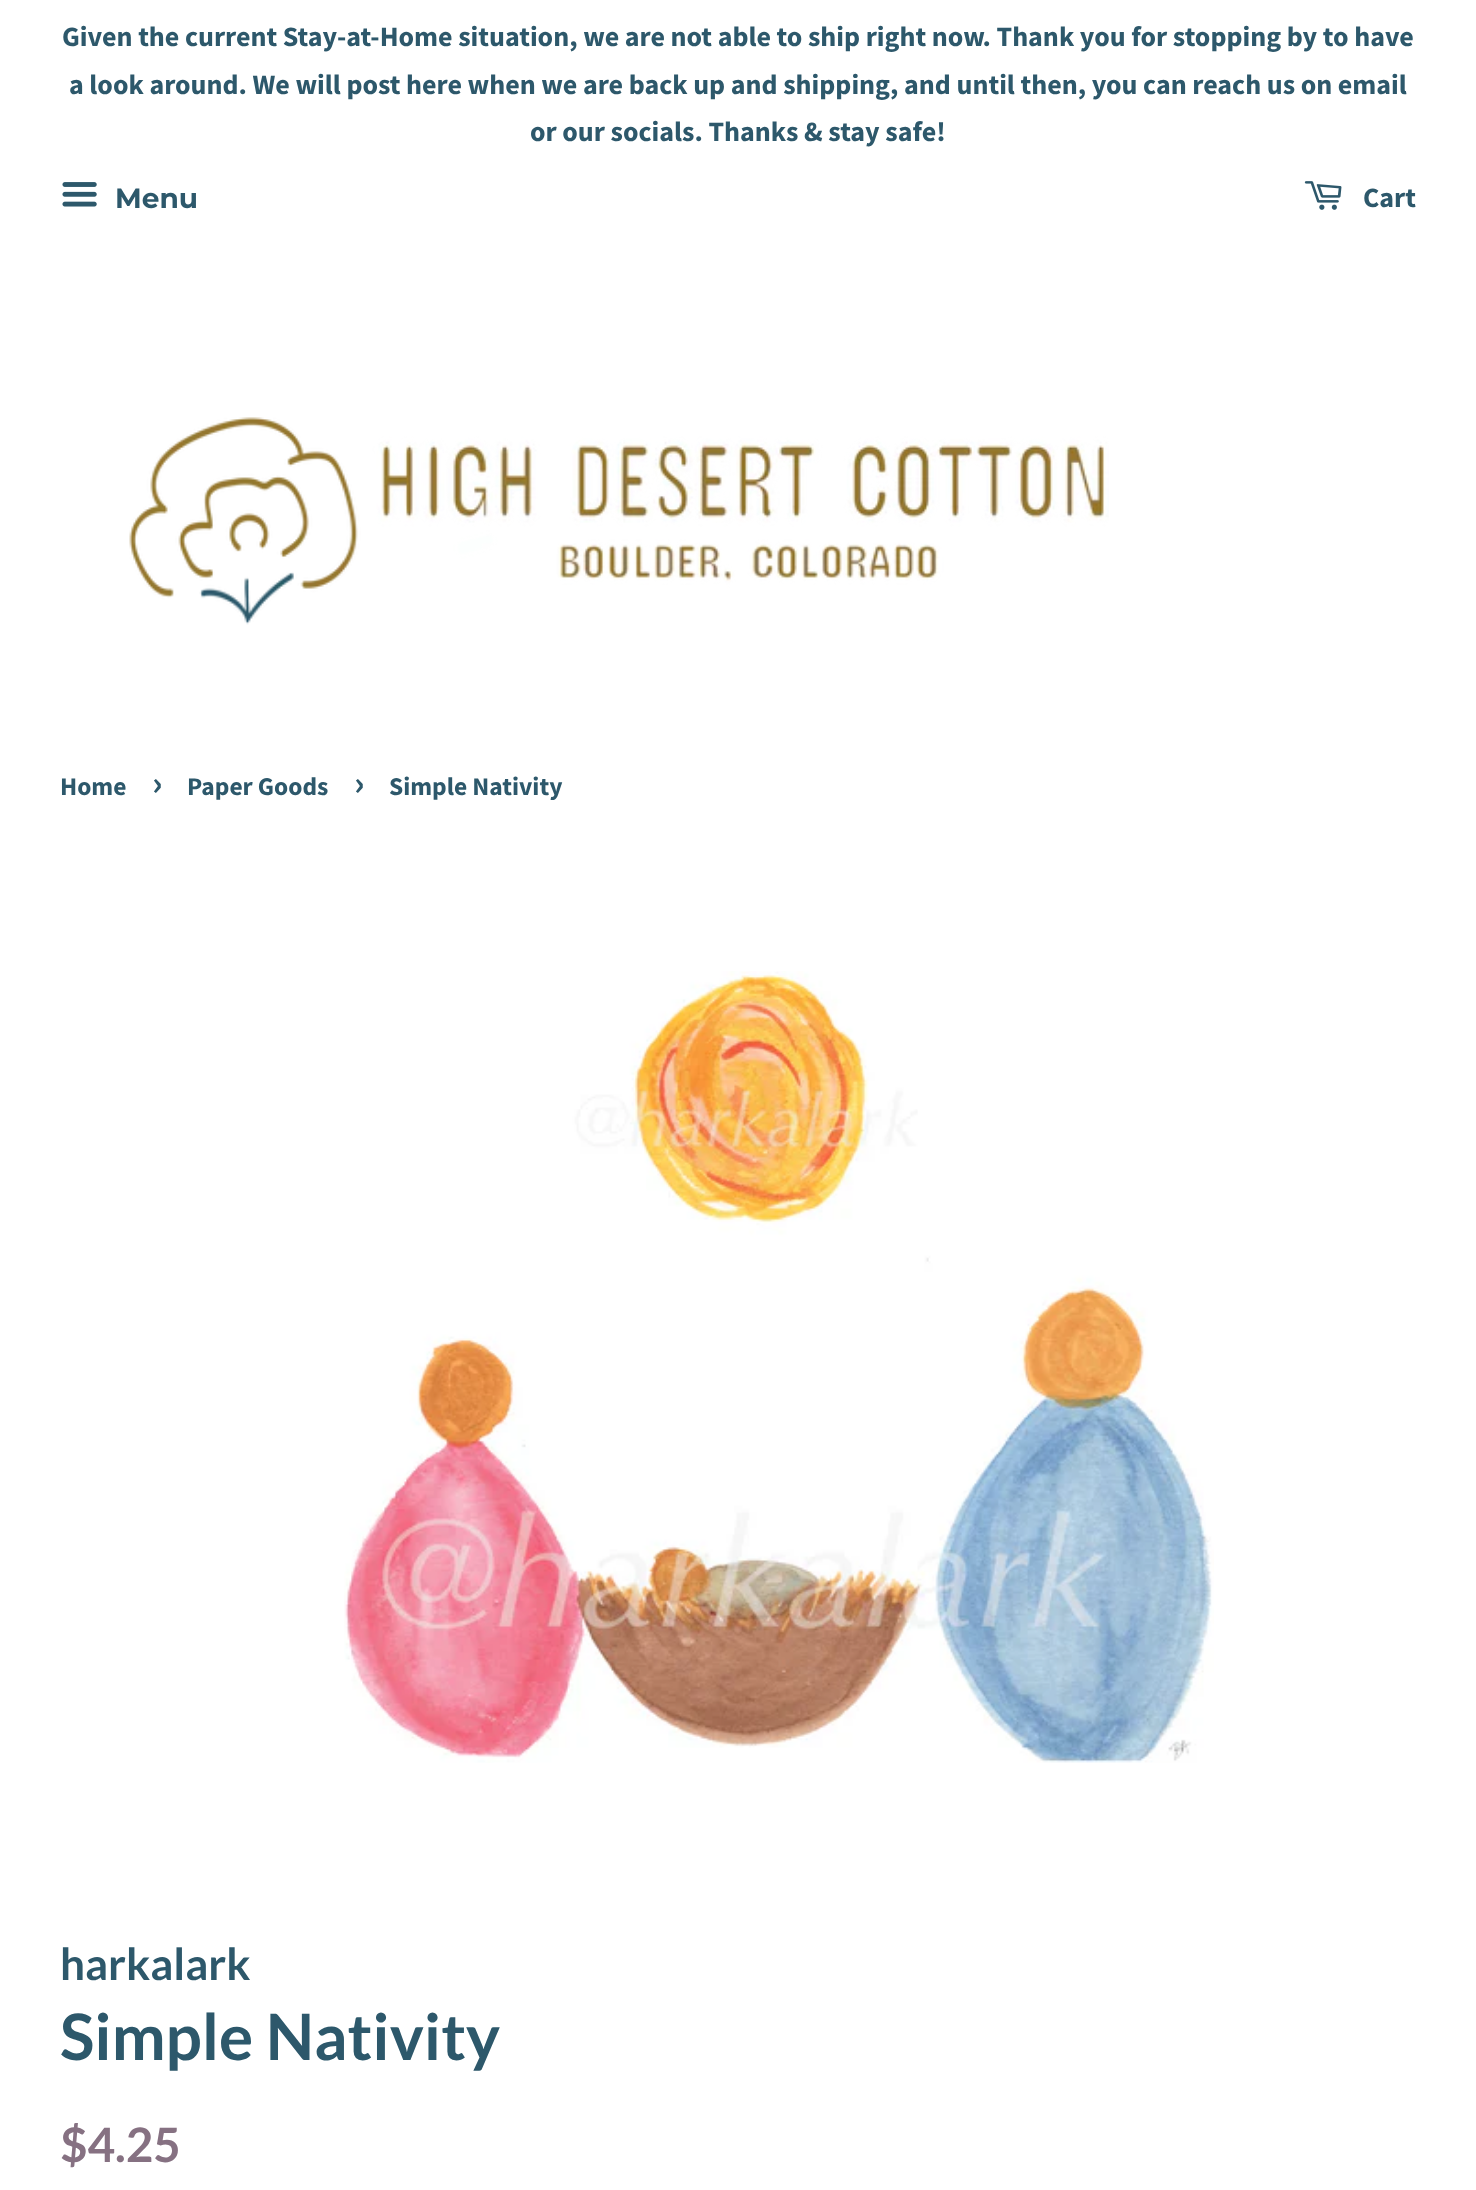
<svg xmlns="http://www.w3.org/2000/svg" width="1476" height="2190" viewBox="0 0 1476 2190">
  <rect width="100%" height="100%" fill="rgb(255,255,255)"/>
  <g font-family="Source Sans Pro" font-size="28" font-weight="bold" fill="rgb(45,88,107)">
    <text x="62" y="46">Given the current Stay-at-Home situation, we are not able to ship right now. Thank you for stopping by to have</text>
    <text x="69" y="94">a look around. We will post here when we are back up and shipping, and until then, you can reach us on email</text>
    <text x="530" y="141">or our socials. Thanks &amp; stay safe!</text>
  </g>
  <image x="62" y="182" width="35" height="25" href="pic1.png"/>
  <text x="115" y="208" font-family="Montserrat" font-size="28" font-weight="bold" fill="rgb(45,88,107)">Menu</text>
  <image x="1304" y="181" width="38" height="29" href="pic2.png"/>
  <text x="1363" y="207" font-family="Source Sans Pro" font-size="28" font-weight="bold" fill="rgb(45,88,107)">Cart</text>
  <image x="129" y="417" width="980" height="208" href="pic3.png"/>
  <text x="60" y="795" font-family="Source Sans Pro" font-size="25.5" font-weight="bold" fill="rgb(45,88,107)">Home</text>
  <text x="152" y="795" font-family="Source Sans Pro" font-size="36" font-weight="bold" fill="rgb(45,88,107)">›</text>
  <text x="187" y="795" font-family="Source Sans Pro" font-size="25.5" font-weight="bold" fill="rgb(45,88,107)">Paper Goods</text>
  <text x="354" y="795" font-family="Source Sans Pro" font-size="36" font-weight="bold" fill="rgb(45,88,107)">›</text>
  <text x="389" y="795" font-family="Source Sans Pro" font-size="25.5" font-weight="bold" fill="rgb(45,88,107)">Simple Nativity</text>
  <image x="344" y="971" width="870" height="792" href="pic4.png"/>
  <text x="60" y="1980" font-family="Lato" font-size="44" font-weight="bold" fill="rgb(45,88,107)">harkalark</text>
  <text x="60" y="2060" font-family="Lato" font-size="64" font-weight="bold" fill="rgb(45,88,107)">Simple Nativity</text>
  <text x="60" y="2162" font-family="Lato" font-size="47.5" font-weight="bold" fill="rgb(134,113,130)">$4.25</text>
</svg>
